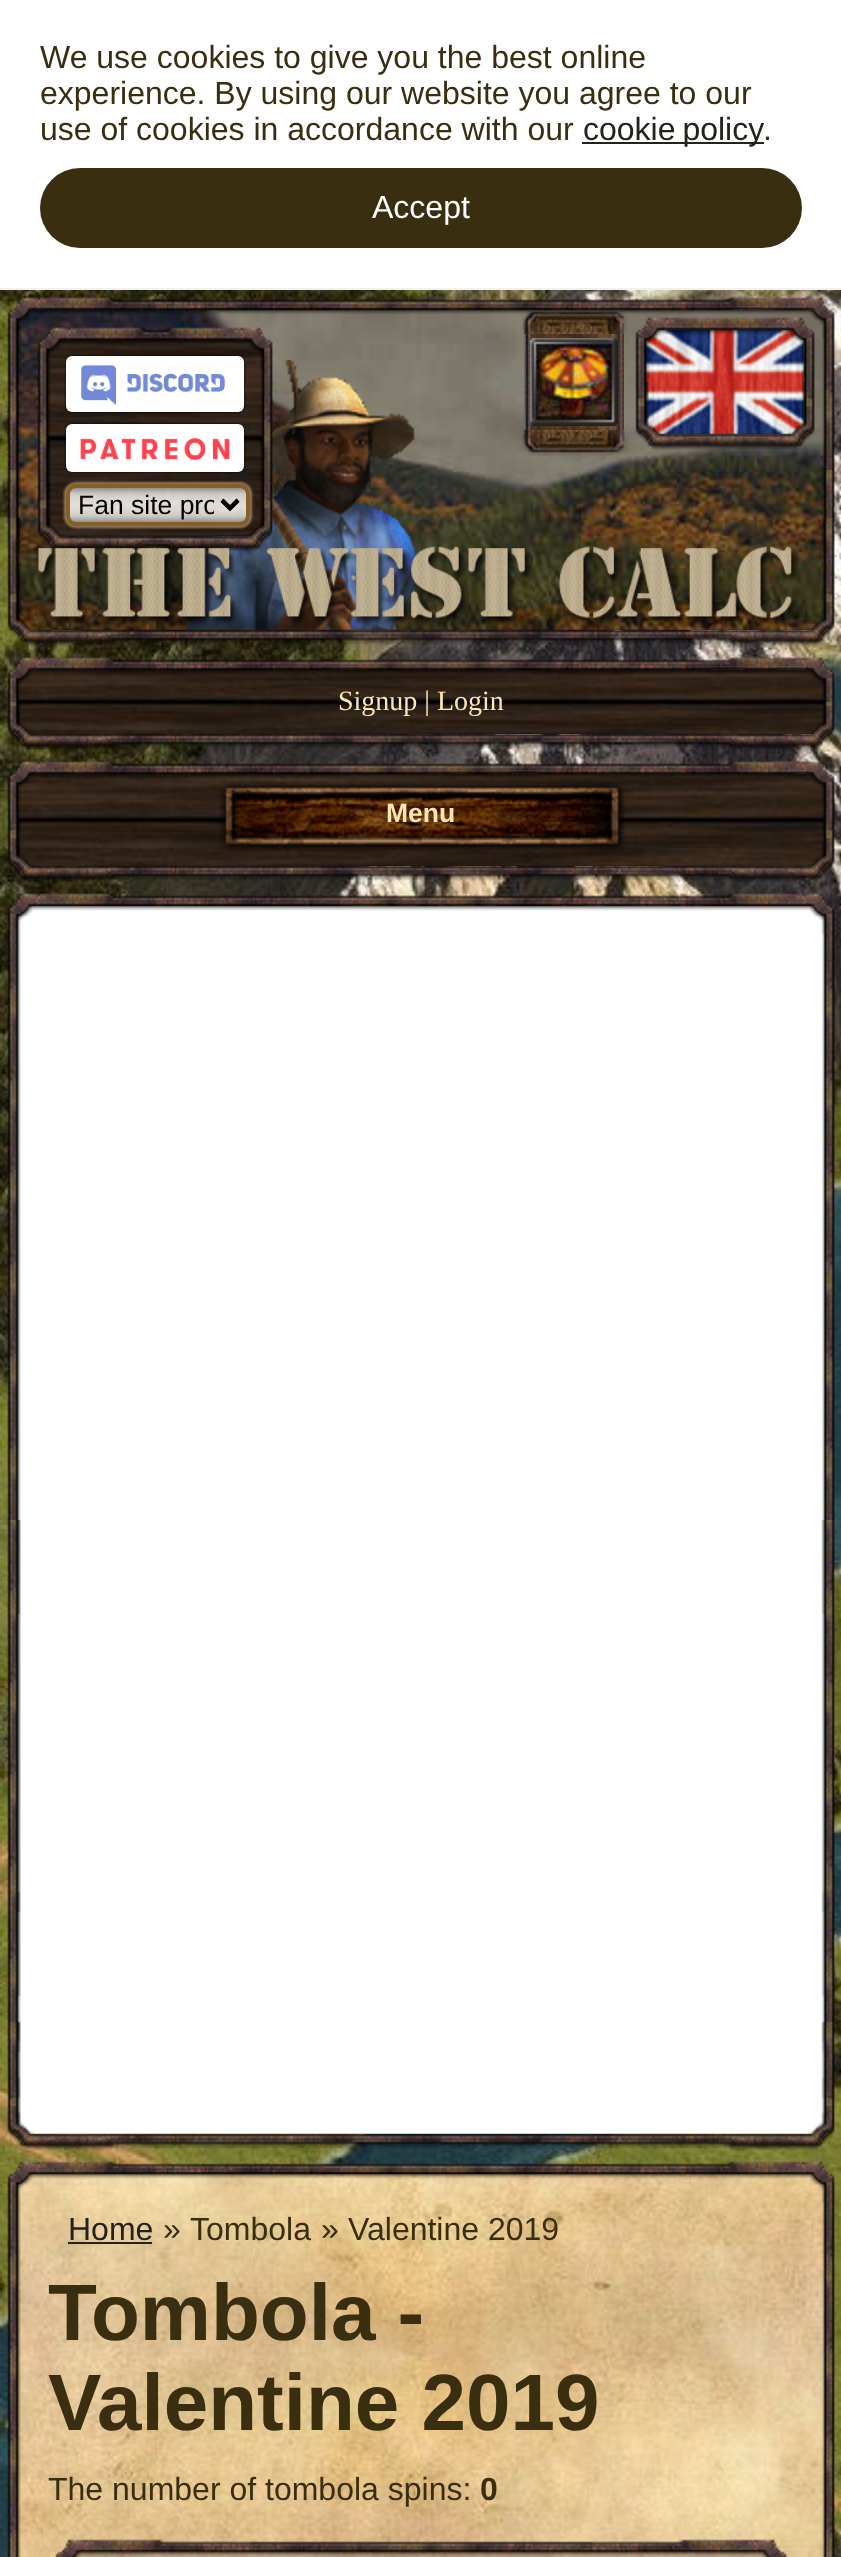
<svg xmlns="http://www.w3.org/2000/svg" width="841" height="2557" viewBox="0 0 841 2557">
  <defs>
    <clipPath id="clip1"><rect x="78" y="488" width="136" height="34"/></clipPath>
  </defs>
  <rect width="100%" height="100%" fill="rgb(255,255,255)"/>
  <image x="0" y="290" width="841" height="2267" href="pic1.png"/>
  <rect x="0" y="288" width="841" height="2" fill="rgb(241,241,241)"/>
  <g font-family="Liberation Sans" font-size="32" fill="rgb(58,46,16)">
    <text>
      <tspan x="40" y="68">We use cookies to give you the best online</tspan>
      <tspan x="40" y="104">experience. By using our website you agree to our</tspan>
      <tspan x="40" y="140">use of cookies in accordance with our</tspan>
    </text>
  </g>
  <rect x="582" y="142" width="182" height="2" fill="rgb(36,34,29)"/>
  <text x="583" y="140" word-spacing="-2" font-family="Liberation Sans" font-size="32" fill="rgb(36,34,29)">cookie policy</text>
  <text x="763" y="140" font-family="Liberation Sans" font-size="32" fill="rgb(58,46,16)">.</text>
  <rect x="40" y="168" width="762" height="80" rx="40" fill="rgb(58,46,16)"/>
  <text x="372" y="218" font-family="Liberation Sans" font-size="32" fill="rgb(255,255,255)">Accept</text>
  <image x="16" y="310" width="810" height="320" href="pic4.png"/>
  <image x="156" y="360" width="261" height="270" href="pic5.png"/>
  <image x="7" y="297" width="415" height="173" href="pic2.png"/>
  <image x="422" y="297" width="413" height="173" href="pic3.png"/>
  <image x="7" y="470" width="415" height="177" href="pic6.png"/>
  <image x="422" y="470" width="413" height="177" href="pic7.png"/>
  <image x="521" y="310" width="107" height="24" href="pic8.png"/>
  <image x="524" y="334" width="100" height="96" href="pic9.png"/>
  <image x="535" y="343" width="78" height="78" href="pic11.png"/>
  <image x="530" y="338" width="88" height="88" href="pic10.png"/>
  <image x="521" y="430" width="107" height="26" href="pic12.png"/>
  <image x="644" y="330" width="162" height="104" href="pic15.png"/>
  <image x="635" y="317" width="91" height="65" href="pic13.png"/>
  <image x="726" y="317" width="89" height="65" href="pic14.png"/>
  <image x="635" y="382" width="91" height="69" href="pic16.png"/>
  <image x="726" y="382" width="89" height="68" href="pic17.png"/>
  <image x="46" y="340" width="217" height="196" href="pic20.png"/>
  <image x="37" y="327" width="119" height="111" href="pic18.png"/>
  <image x="156" y="327" width="117" height="111" href="pic19.png"/>
  <image x="37" y="438" width="119" height="114" href="pic21.png"/>
  <image x="156" y="438" width="117" height="115" href="pic22.png"/>
  <rect x="66" y="356" width="178" height="56" rx="6" fill="rgb(0,0,0)" filter="blur(1px)"/>
  <rect x="66" y="356" width="178" height="56" rx="6" fill="rgb(255,255,255)"/>
  <image x="81" y="365" width="144" height="40" href="pic23.png"/>
  <rect x="66" y="424" width="178" height="48" rx="6" fill="rgb(0,0,0)" filter="blur(1px)"/>
  <rect x="66" y="424" width="178" height="48" rx="6" fill="rgb(255,255,255)"/>
  <image x="80" y="438" width="150" height="22" href="pic24.png"/>
  <rect x="64" y="482" width="188" height="46" rx="12" fill="rgb(146,123,92)" filter="blur(1px)"/>
  <image x="66" y="484" width="184" height="42" href="pic25.png"/>
  <rect x="68" y="486" width="180" height="38" rx="8" fill="none" stroke="rgb(134,94,41)" stroke-width="4"/>
  <path d="M222 500.5L230 508.5L238 500.5" fill="none" stroke="rgb(0,0,0)" stroke-width="4"/>
  <g clip-path="url(#clip1)">
    <text x="78" y="514" font-family="Liberation Sans" font-size="26.5" fill="rgb(0,0,0)">Fan site pro</text>
  </g>
  <image x="38" y="546" width="760" height="80" href="pic26.png"/>
  <image x="16" y="670" width="810" height="64" href="pic29.png"/>
  <image x="7" y="657" width="415" height="45" href="pic27.png"/>
  <image x="422" y="657" width="413" height="45" href="pic28.png"/>
  <image x="7" y="702" width="415" height="48" href="pic30.png"/>
  <image x="422" y="702" width="413" height="49" href="pic31.png"/>
  <text x="338" y="710" font-family="Liberation Serif" font-size="28" fill="rgb(255,231,177)">Signup | Login</text>
  <image x="16" y="774" width="810" height="92" href="pic34.png"/>
  <image x="7" y="761" width="415" height="59" href="pic32.png"/>
  <image x="422" y="761" width="413" height="59" href="pic33.png"/>
  <image x="7" y="820" width="415" height="62" href="pic37.png"/>
  <image x="219" y="781" width="203" height="70" href="pic35.png"/>
  <image x="422" y="820" width="413" height="62" href="pic38.png"/>
  <image x="422" y="781" width="203" height="70" href="pic36.png"/>
  <text x="386" y="822" font-family="Liberation Sans" font-size="26.5" font-weight="bold" fill="rgb(255,231,177)">Menu</text>
  <rect x="16" y="906" width="810" height="1228" fill="rgb(255,255,255)"/>
  <image x="7" y="893" width="415" height="627" href="pic39.png"/>
  <image x="422" y="893" width="413" height="627" href="pic40.png"/>
  <image x="7" y="1520" width="415" height="631" href="pic41.png"/>
  <image x="422" y="1520" width="413" height="631" href="pic42.png"/>
  <image x="17" y="2174" width="808" height="383" href="pic45.png"/>
  <image x="7" y="2161" width="415" height="396" href="pic43.png"/>
  <image x="422" y="2161" width="413" height="396" href="pic44.png"/>
  <text x="68" y="2240" font-family="Liberation Sans" font-size="32" fill="rgb(36,34,29)">Home</text>
  <rect x="68" y="2242" width="84" height="2" fill="rgb(36,34,29)"/>
  <g font-family="Liberation Sans" font-size="32" fill="rgb(58,46,16)">
    <text x="163" y="2240">»</text>
    <text x="190" y="2240">Tombola</text>
    <text x="321" y="2240">»</text>
    <text x="348" y="2240">Valentine 2019</text>
  </g>
  <g font-family="Liberation Sans" font-size="80" font-weight="bold" fill="rgb(58,46,16)">
    <text>
      <tspan x="48" y="2340">Tombola -</tspan>
      <tspan x="48" y="2430">Valentine 2019</tspan>
    </text>
  </g>
  <text x="48" y="2500" font-family="Liberation Sans" font-size="32" fill="rgb(58,46,16)">The number of tombola spins:</text>
  <text x="480" y="2500" font-family="Liberation Sans" font-size="32" font-weight="bold" fill="rgb(58,46,16)">0</text>
  <image x="73" y="2552" width="696" height="5" href="pic48.png"/>
  <image x="55" y="2539" width="367" height="18" href="pic46.png"/>
  <image x="422" y="2539" width="365" height="18" href="pic47.png"/>
</svg>
